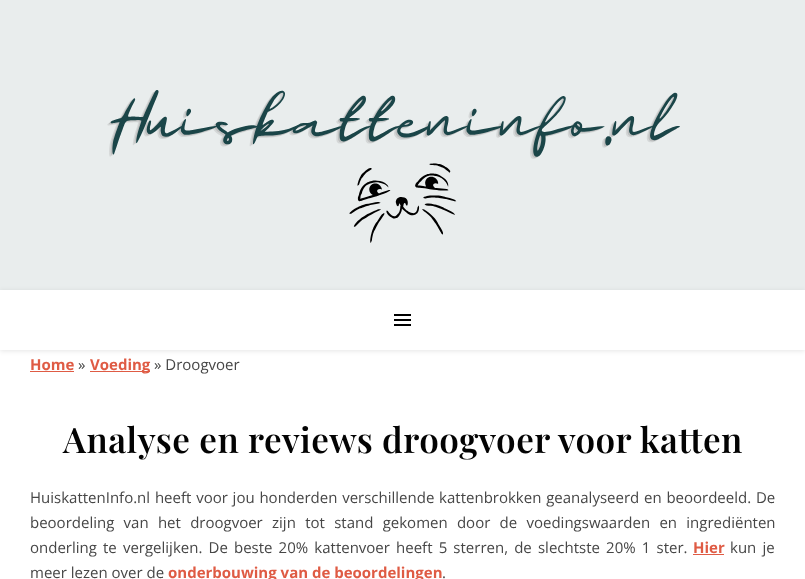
<svg xmlns="http://www.w3.org/2000/svg" width="805" height="579" viewBox="0 0 805 579">
  <defs>
    <clipPath id="clip1"><path d="M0 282H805V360H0ZM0 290H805V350H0Z" clip-rule="evenodd"/></clipPath>
  </defs>
  <rect width="100%" height="100%" fill="rgb(255,255,255)"/>
  <rect x="0" y="0" width="805" height="290" fill="rgb(233,237,237)"/>
  <image x="107" y="90" width="573" height="153" href="pic1.png"/>
  <g clip-path="url(#clip1)">
    <rect x="0" y="291" width="805" height="60" fill="rgba(0,0,0,0.1)" filter="blur(2.5px)"/>
  </g>
  <rect x="394" y="314" width="17" height="2" fill="rgb(0,0,0)"/>
  <rect x="394" y="319" width="17" height="2" fill="rgb(0,0,0)"/>
  <rect x="394" y="324" width="17" height="2" fill="rgb(0,0,0)"/>
  <text x="30" y="370" font-family="Open Sans" font-size="15" font-weight="bold" fill="rgb(223,91,68)">Home</text>
  <rect x="30" y="371" width="44" height="1" fill="rgb(223,91,68)"/>
  <text x="78" y="370" font-family="Open Sans" font-size="15" fill="rgb(70,70,70)">»</text>
  <rect x="90" y="371" width="60" height="1" fill="rgb(223,91,68)"/>
  <text x="90" y="370" font-family="Open Sans" font-size="15" font-weight="bold" fill="rgb(223,91,68)">Voeding</text>
  <text x="154" y="370" font-family="Open Sans" font-size="15" fill="rgb(70,70,70)">» Droogvoer</text>
  <text x="63" y="453" font-family="Playfair Display" font-size="35" font-weight="600" letter-spacing="0.5" fill="rgb(3,3,3)">Analyse en reviews droogvoer voor katten</text>
  <g font-family="Open Sans" font-size="15" fill="rgb(70,70,70)">
    <text>
      <tspan x="30" y="503" word-spacing="0.9">HuiskattenInfo.nl heeft voor jou honderden verschillende kattenbrokken geanalyseerd en beoordeeld. De</tspan>
      <tspan x="30" y="528" word-spacing="5.4">beoordeling van het droogvoer zijn tot stand gekomen door de voedingswaarden en ingrediënten</tspan>
      <tspan x="30" y="553" word-spacing="2.25">onderling te vergelijken. De beste 20% kattenvoer heeft 5 sterren, de slechtste 20% 1 ster.</tspan>
    </text>
  </g>
  <text x="693" y="553" font-family="Open Sans" font-size="15" font-weight="bold" fill="rgb(223,91,68)">Hier</text>
  <rect x="693" y="554" width="31" height="1" fill="rgb(223,91,68)"/>
  <g font-family="Open Sans" font-size="15" fill="rgb(70,70,70)">
    <text x="730" y="553" word-spacing="2.25">kun je</text>
    <text x="30" y="578">meer lezen over de</text>
  </g>
  <text x="168" y="578" font-family="Open Sans" font-size="15" font-weight="bold" fill="rgb(223,91,68)">onderbouwing van de beoordelingen</text>
  <text x="442" y="578" font-family="Open Sans" font-size="15" fill="rgb(70,70,70)">.</text>
</svg>
